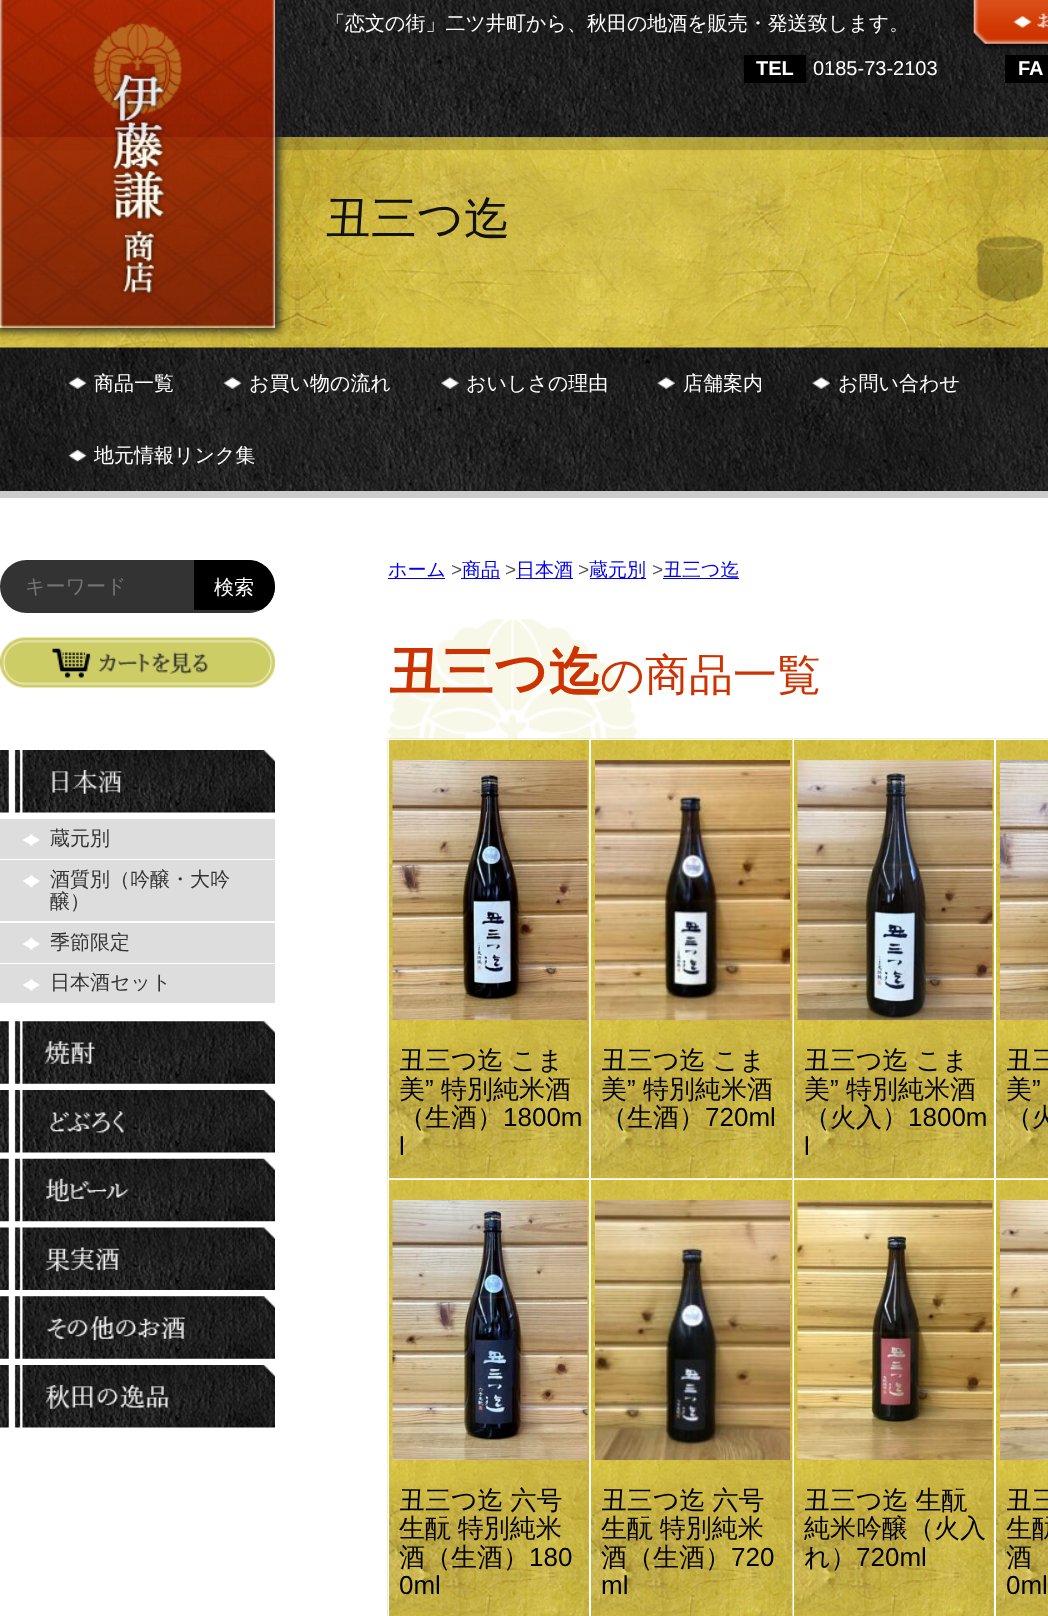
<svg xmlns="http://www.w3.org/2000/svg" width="1048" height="1616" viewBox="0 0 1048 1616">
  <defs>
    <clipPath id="clip1"><path d="M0 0H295V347H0ZM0-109H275V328H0Z" clip-rule="evenodd"/></clipPath>
    <clipPath id="clip2"><rect x="0" y="560" width="275" height="53" rx="26.5"/></clipPath>
  </defs>
  <rect width="100%" height="100%" fill="rgb(255,255,255)"/>
  <image x="0" y="0" width="1048" height="138" href="pic1.png"/>
  <image x="0" y="137" width="1048" height="211" href="pic5.png"/>
  <g clip-path="url(#clip1)">
    <rect x="-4" y="-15" width="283" height="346" fill="rgb(34,34,34)" filter="blur(5px)"/>
  </g>
  <image x="0" y="0" width="275" height="328" href="pic2.png"/>
  <text x="325" y="30" font-family="WenQuanYi Zen Hei" font-size="20" font-weight="500" fill="rgb(255,255,255)">「恋文の街」二ツ井町から、秋田の地酒を販売・発送致します。</text>
  <image x="972" y="0" width="76" height="49" href="pic3.png"/>
  <rect x="744" y="55" width="62" height="28" fill="rgb(0,0,0)"/>
  <text x="756" y="75" font-family="Liberation Sans" font-size="20" font-weight="bold" fill="rgb(255,255,255)">TEL</text>
  <text x="813" y="75" font-family="Liberation Sans" font-size="20" fill="rgb(255,255,255)">0185-73-2103</text>
  <rect x="1005" y="55" width="43" height="28" fill="rgb(0,0,0)"/>
  <text x="1018" y="75" font-family="Liberation Sans" font-size="20" font-weight="bold" fill="rgb(255,255,255)">FA</text>
  <image x="976" y="236" width="68" height="67" href="pic4.png"/>
  <text x="325" y="234" font-family="WenQuanYi Zen Hei" font-size="46" font-weight="500" fill="rgb(17,17,17)">丑三つ迄</text>
  <image x="0" y="347" width="1048" height="144" href="pic6.png"/>
  <rect x="0" y="491" width="1048" height="7" fill="rgb(204,204,204)"/>
  <image x="68" y="377" width="19" height="12" href="pic7.png"/>
  <text x="94" y="390" font-family="WenQuanYi Zen Hei" font-size="20" font-weight="500" fill="rgb(255,255,255)">商品一覧</text>
  <image x="223" y="377" width="19" height="12" href="pic8.png"/>
  <text x="249" y="390" font-family="WenQuanYi Zen Hei" font-size="20" font-weight="500" fill="rgb(255,255,255)">お買い物の流れ</text>
  <image x="441" y="377" width="18" height="12" href="pic9.png"/>
  <text x="466" y="390" font-family="WenQuanYi Zen Hei" font-size="20" font-weight="500" fill="rgb(255,255,255)">おいしさの理由</text>
  <image x="657" y="377" width="18" height="12" href="pic10.png"/>
  <text x="683" y="390" font-family="WenQuanYi Zen Hei" font-size="20" font-weight="500" fill="rgb(255,255,255)">店舗案内</text>
  <image x="812" y="377" width="18" height="12" href="pic11.png"/>
  <text x="838" y="390" font-family="WenQuanYi Zen Hei" font-size="20" font-weight="500" fill="rgb(255,255,255)">お問い合わせ</text>
  <image x="68" y="450" width="19" height="12" href="pic12.png"/>
  <text x="94" y="462" font-family="WenQuanYi Zen Hei" font-size="20" font-weight="500" fill="rgb(255,255,255)">地元情報リンク集</text>
  <rect x="0" y="560" width="275" height="53" rx="26.5" fill="rgb(51,51,51)"/>
  <text x="25" y="593" font-family="WenQuanYi Zen Hei" font-size="20" font-weight="500" fill="rgb(117,117,117)">キーワード</text>
  <g clip-path="url(#clip2)">
    <path d="M194 560H248.5C263 560 275 572 275 586.5V610H194Z" fill="rgb(0,0,0)"/>
  </g>
  <text x="214" y="594" font-family="WenQuanYi Zen Hei" font-size="20" font-weight="500" fill="rgb(255,255,255)">検索</text>
  <image x="0" y="637" width="275" height="51" href="pic13.png"/>
  <image x="0" y="750" width="275" height="63" href="pic14.png"/>
  <rect x="0" y="819" width="275" height="40" fill="rgb(221,221,221)"/>
  <path d="M32.5 834V846L22.5 840Z" fill="rgb(255,255,255)"/>
  <path d="M30 846V834L40 840Z" fill="rgb(255,255,255)"/>
  <text x="50" y="845" font-family="WenQuanYi Zen Hei" font-size="20" font-weight="500" fill="rgb(51,51,51)">蔵元別</text>
  <rect x="0" y="860" width="275" height="61" fill="rgb(221,221,221)"/>
  <path d="M32.5 875V887.5L22.5 881Z" fill="rgb(255,255,255)"/>
  <path d="M30 887.5V875L40 881Z" fill="rgb(255,255,255)"/>
  <g font-family="WenQuanYi Zen Hei" font-size="20" font-weight="500" fill="rgb(51,51,51)">
    <text>
      <tspan x="50" y="886">酒質別（吟醸・大吟</tspan>
      <tspan x="50" y="908">醸）</tspan>
    </text>
  </g>
  <rect x="0" y="923" width="275" height="40" fill="rgb(221,221,221)"/>
  <path d="M32.5 937.5V950L22.5 944Z" fill="rgb(255,255,255)"/>
  <path d="M30 950V937.5L40 944Z" fill="rgb(255,255,255)"/>
  <text x="50" y="949" font-family="WenQuanYi Zen Hei" font-size="20" font-weight="500" fill="rgb(51,51,51)">季節限定</text>
  <rect x="0" y="964" width="275" height="39" fill="rgb(221,221,221)"/>
  <path d="M32.5 979V991L22.5 985Z" fill="rgb(255,255,255)"/>
  <path d="M30 991V979L40 985Z" fill="rgb(255,255,255)"/>
  <text x="50" y="989" font-family="WenQuanYi Zen Hei" font-size="20" font-weight="500" fill="rgb(51,51,51)">日本酒セット</text>
  <image x="0" y="1021" width="275" height="63" href="pic15.png"/>
  <image x="0" y="1090" width="275" height="63" href="pic16.png"/>
  <image x="0" y="1158" width="275" height="64" href="pic17.png"/>
  <image x="0" y="1227" width="275" height="63" href="pic18.png"/>
  <image x="0" y="1296" width="275" height="63" href="pic19.png"/>
  <image x="0" y="1365" width="275" height="63" href="pic20.png"/>
  <text x="388" y="576" font-family="WenQuanYi Zen Hei" font-size="19" font-weight="500" fill="rgb(0,0,238)">ホーム</text>
  <rect x="388" y="578" width="57" height="1" fill="rgb(0,0,238)"/>
  <text x="451" y="576" font-family="Liberation Sans" font-size="19" fill="rgb(85,85,85)">&gt;</text>
  <rect x="461" y="578" width="39" height="1" fill="rgb(0,0,238)"/>
  <text x="462" y="576" font-family="WenQuanYi Zen Hei" font-size="19" font-weight="500" fill="rgb(0,0,238)">商品</text>
  <text x="505" y="576" font-family="Liberation Sans" font-size="19" fill="rgb(85,85,85)">&gt;</text>
  <rect x="516" y="578" width="57" height="1" fill="rgb(0,0,238)"/>
  <text x="516" y="576" font-family="WenQuanYi Zen Hei" font-size="19" font-weight="500" fill="rgb(0,0,238)">日本酒</text>
  <text x="578" y="576" font-family="Liberation Sans" font-size="19" fill="rgb(85,85,85)">&gt;</text>
  <rect x="590" y="578" width="56" height="1" fill="rgb(0,0,238)"/>
  <text x="589" y="576" font-family="WenQuanYi Zen Hei" font-size="19" font-weight="500" fill="rgb(0,0,238)">蔵元別</text>
  <text x="652" y="576" font-family="Liberation Sans" font-size="19" fill="rgb(85,85,85)">&gt;</text>
  <text x="663" y="576" font-family="WenQuanYi Zen Hei" font-size="19" font-weight="500" fill="rgb(0,0,238)">丑三つ迄</text>
  <rect x="663" y="578" width="76" height="1" fill="rgb(0,0,238)"/>
  <image x="387" y="618" width="251" height="132" href="pic21.png"/>
  <text x="388" y="690" font-family="WenQuanYi Zen Hei" font-size="53" font-weight="bold" fill="rgb(204,51,0)">丑三つ迄</text>
  <text x="600" y="690" font-family="WenQuanYi Zen Hei" font-size="44" font-weight="500" fill="rgb(204,51,0)">の商品一覧</text>
  <image x="387" y="738" width="203" height="441" href="pic22.png"/>
  <rect x="388.5" y="739.5" width="201" height="439" fill="none" stroke="rgb(255,255,255)"/>
  <image x="392" y="760" width="196" height="260" href="pic23.png"/>
  <g font-family="WenQuanYi Zen Hei" font-size="26" font-weight="500" fill="rgb(0,0,0)">
    <text>
      <tspan x="399" y="1069" word-spacing="-1">丑三つ迄 こま</tspan>
      <tspan x="399" y="1098">美</tspan>
    </text>
  </g>
  <text x="425" y="1098" font-family="Liberation Sans" font-size="26" fill="rgb(0,0,0)">”</text>
  <g font-family="WenQuanYi Zen Hei" font-size="26" font-weight="500" fill="rgb(0,0,0)">
    <text x="441" y="1098">特別純米酒</text>
    <text x="399" y="1126">（生酒）</text>
  </g>
  <g font-family="Liberation Sans" font-size="26" fill="rgb(0,0,0)">
    <text x="503" y="1126">1800m</text>
    <text x="399" y="1155">l</text>
  </g>
  <image x="590" y="738" width="203" height="440" href="pic24.png"/>
  <rect x="590.5" y="739.5" width="202" height="439" fill="none" stroke="rgb(255,255,255)"/>
  <image x="595" y="760" width="195" height="260" href="pic25.png"/>
  <g font-family="WenQuanYi Zen Hei" font-size="26" font-weight="500" fill="rgb(0,0,0)">
    <text>
      <tspan x="601" y="1069" word-spacing="-1">丑三つ迄 こま</tspan>
      <tspan x="601" y="1098">美</tspan>
    </text>
  </g>
  <text x="627" y="1098" font-family="Liberation Sans" font-size="26" fill="rgb(0,0,0)">”</text>
  <g font-family="WenQuanYi Zen Hei" font-size="26" font-weight="500" fill="rgb(0,0,0)">
    <text x="643" y="1098">特別純米酒</text>
    <text x="601" y="1126">（生酒）</text>
  </g>
  <text x="705" y="1126" font-family="Liberation Sans" font-size="26" fill="rgb(0,0,0)">720ml</text>
  <image x="792" y="738" width="203" height="441" href="pic26.png"/>
  <rect x="793.5" y="739.5" width="201" height="439" fill="none" stroke="rgb(255,255,255)"/>
  <image x="797" y="760" width="196" height="260" href="pic27.png"/>
  <g font-family="WenQuanYi Zen Hei" font-size="26" font-weight="500" fill="rgb(0,0,0)">
    <text>
      <tspan x="804" y="1069" word-spacing="-1">丑三つ迄 こま</tspan>
      <tspan x="804" y="1098">美</tspan>
    </text>
  </g>
  <text x="830" y="1098" font-family="Liberation Sans" font-size="26" fill="rgb(0,0,0)">”</text>
  <g font-family="WenQuanYi Zen Hei" font-size="26" font-weight="500" fill="rgb(0,0,0)">
    <text x="846" y="1098">特別純米酒</text>
    <text x="804" y="1126">（火入）</text>
  </g>
  <g font-family="Liberation Sans" font-size="26" fill="rgb(0,0,0)">
    <text x="908" y="1126">1800m</text>
    <text x="804" y="1155">l</text>
  </g>
  <image x="995" y="738" width="53" height="440" href="pic28.png"/>
  <rect x="995.5" y="739.5" width="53" height="439" fill="none" stroke="rgb(255,255,255)"/>
  <image x="1000" y="760" width="48" height="260" href="pic29.png"/>
  <g font-family="WenQuanYi Zen Hei" font-size="26" font-weight="500" fill="rgb(0,0,0)">
    <text>
      <tspan x="1006" y="1069" word-spacing="-1">丑三</tspan>
      <tspan x="1006" y="1098">美</tspan>
    </text>
  </g>
  <text x="1032" y="1098" font-family="Liberation Sans" font-size="26" fill="rgb(0,0,0)">”</text>
  <text x="1006" y="1126" font-family="WenQuanYi Zen Hei" font-size="26" font-weight="500" fill="rgb(0,0,0)">（火</text>
  <image x="387" y="1178" width="203" height="438" href="pic30.png"/>
  <rect x="388.5" y="1179.5" width="201" height="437" fill="none" stroke="rgb(255,255,255)"/>
  <image x="392" y="1200" width="196" height="260" href="pic31.png"/>
  <g font-family="WenQuanYi Zen Hei" font-size="26" font-weight="500" fill="rgb(0,0,0)">
    <text>
      <tspan x="399" y="1509" word-spacing="-1">丑三つ迄 六号</tspan>
      <tspan x="399" y="1537" word-spacing="-1">生酛 特別純米</tspan>
      <tspan x="399" y="1566">酒（生酒）</tspan>
    </text>
  </g>
  <g font-family="Liberation Sans" font-size="26" fill="rgb(0,0,0)">
    <text x="529" y="1566">180</text>
    <text x="399" y="1594">0ml</text>
  </g>
  <image x="590" y="1178" width="203" height="438" href="pic32.png"/>
  <rect x="590.5" y="1179.5" width="202" height="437" fill="none" stroke="rgb(255,255,255)"/>
  <image x="595" y="1200" width="195" height="260" href="pic33.png"/>
  <g font-family="WenQuanYi Zen Hei" font-size="26" font-weight="500" fill="rgb(0,0,0)">
    <text>
      <tspan x="601" y="1509" word-spacing="-1">丑三つ迄 六号</tspan>
      <tspan x="601" y="1537" word-spacing="-1">生酛 特別純米</tspan>
      <tspan x="601" y="1566">酒（生酒）</tspan>
    </text>
  </g>
  <g font-family="Liberation Sans" font-size="26" fill="rgb(0,0,0)">
    <text x="731" y="1566">720</text>
    <text x="601" y="1594">ml</text>
  </g>
  <image x="792" y="1178" width="203" height="438" href="pic34.png"/>
  <rect x="793.5" y="1179.5" width="201" height="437" fill="none" stroke="rgb(255,255,255)"/>
  <image x="797" y="1200" width="196" height="260" href="pic35.png"/>
  <g font-family="WenQuanYi Zen Hei" font-size="26" font-weight="500" fill="rgb(0,0,0)">
    <text>
      <tspan x="804" y="1509" word-spacing="-1">丑三つ迄 生酛</tspan>
      <tspan x="804" y="1537">純米吟醸（火入</tspan>
      <tspan x="804" y="1566">れ）</tspan>
    </text>
  </g>
  <text x="856" y="1566" font-family="Liberation Sans" font-size="26" fill="rgb(0,0,0)">720ml</text>
  <image x="995" y="1178" width="53" height="438" href="pic36.png"/>
  <rect x="995.5" y="1179.5" width="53" height="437" fill="none" stroke="rgb(255,255,255)"/>
  <image x="1000" y="1200" width="48" height="260" href="pic37.png"/>
  <g font-family="WenQuanYi Zen Hei" font-size="26" font-weight="500" fill="rgb(0,0,0)">
    <text>
      <tspan x="1006" y="1509" word-spacing="-1">丑三</tspan>
      <tspan x="1006" y="1537" word-spacing="-1">生酛</tspan>
      <tspan x="1006" y="1566">酒</tspan>
    </text>
  </g>
  <text x="1006" y="1594" font-family="Liberation Sans" font-size="26" fill="rgb(0,0,0)">0ml</text>
</svg>
